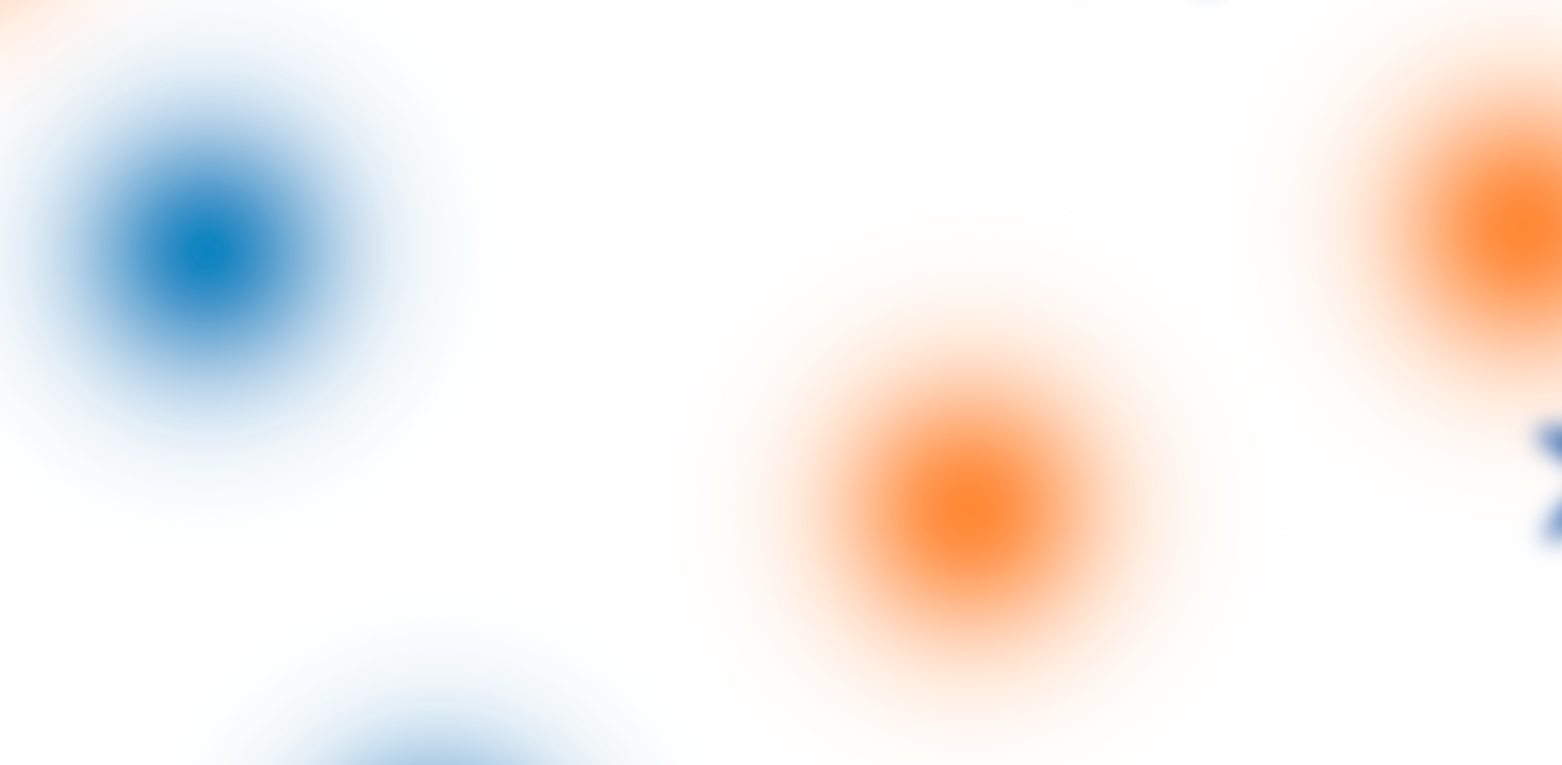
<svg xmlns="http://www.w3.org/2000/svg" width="1562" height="765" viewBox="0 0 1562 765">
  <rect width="100%" height="100%" fill="rgb(255,255,255)"/>
  <image x="0" y="0" width="1562" height="765" href="pic1.png"/>
</svg>
